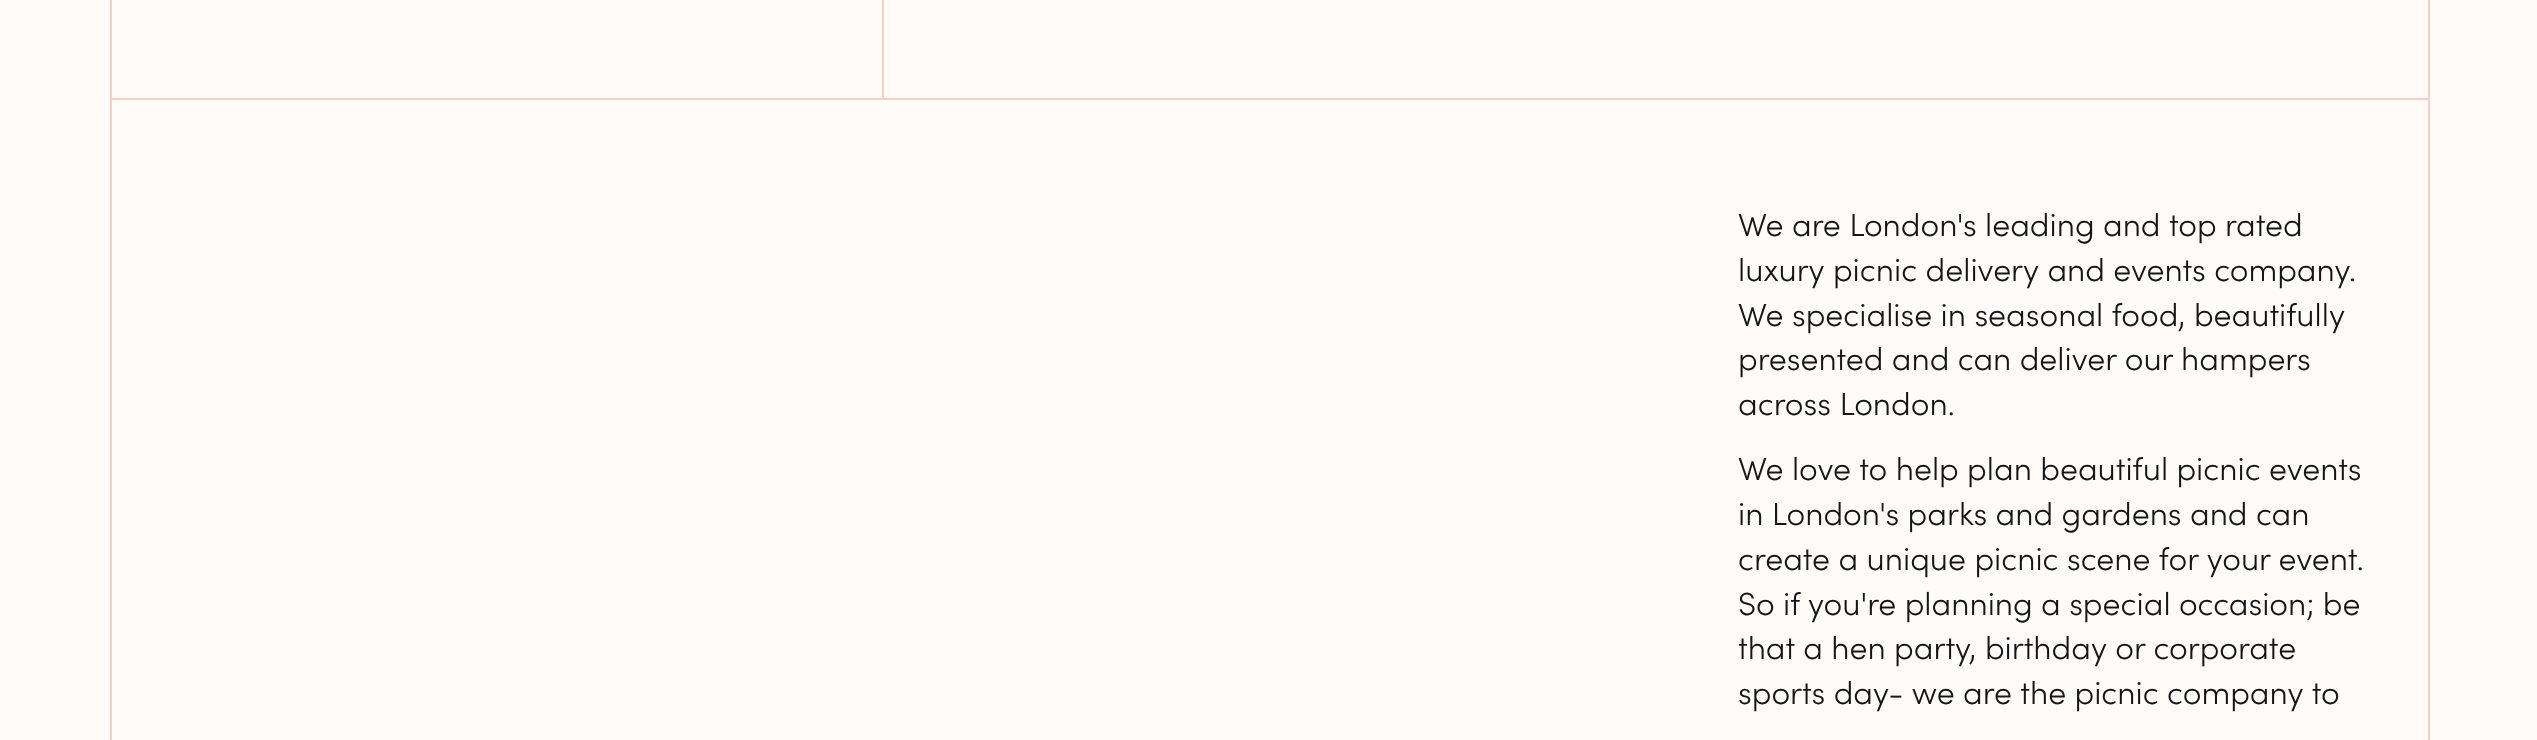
<svg xmlns="http://www.w3.org/2000/svg" width="2537" height="740" viewBox="0 0 2537 740">
  <rect width="100%" height="100%" fill="rgb(255,251,248)"/>
  <rect x="111" y="-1" width="2318" height="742" fill="none" stroke="rgb(246,207,199)" stroke-width="2"/>
  <rect x="882" y="0" width="2" height="98" fill="rgb(246,207,199)"/>
  <rect x="112" y="98" width="2316" height="2" fill="rgb(246,207,199)"/>
  <g font-family="Sofia" font-size="32" font-weight="300" fill="rgb(19,21,22)">
    <text>
      <tspan x="1738" y="236">We are London's leading and top rated</tspan>
      <tspan x="1738" y="281">luxury picnic delivery and events company.</tspan>
      <tspan x="1738" y="326">We specialise in seasonal food, beautifully</tspan>
      <tspan x="1738" y="370">presented and can deliver our hampers</tspan>
      <tspan x="1738" y="415">across London.</tspan>
    </text>
    <text>
      <tspan x="1738" y="480">We love to help plan beautiful picnic events</tspan>
      <tspan x="1738" y="525">in London's parks and gardens and can</tspan>
      <tspan x="1738" y="570">create a unique picnic scene for your event.</tspan>
      <tspan x="1738" y="615">So if you're planning a special occasion; be</tspan>
      <tspan x="1738" y="659">that a hen party, birthday or corporate</tspan>
      <tspan x="1738" y="704">sports day- we are the picnic company to</tspan>
    </text>
  </g>
</svg>
